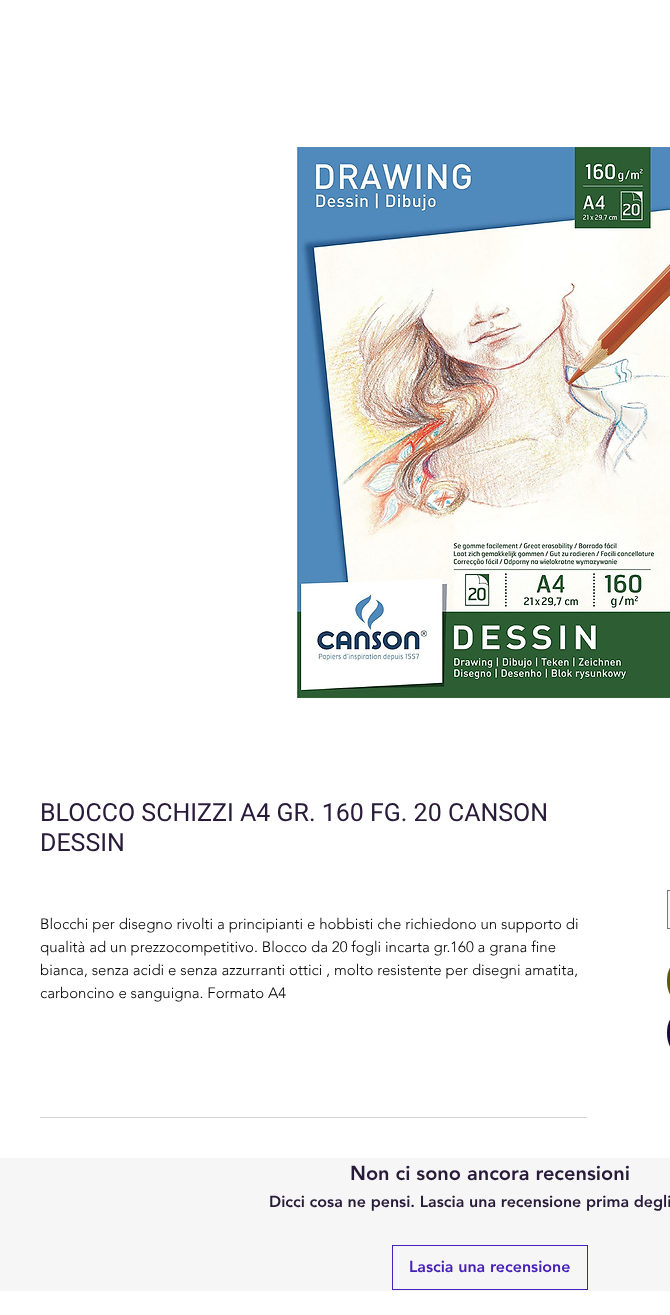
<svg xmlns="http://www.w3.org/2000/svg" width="670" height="1315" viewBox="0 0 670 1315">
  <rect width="100%" height="100%" fill="rgb(255,255,255)"/>
  <image x="297" y="147" width="373" height="551" href="pic1.png"/>
  <g font-family="Roboto" font-size="25" fill="rgb(40,26,57)">
    <text>
      <tspan x="40" y="821">BLOCCO SCHIZZI A4 GR. 160 FG. 20 CANSON</tspan>
      <tspan x="40" y="851">DESSIN</tspan>
    </text>
  </g>
  <g font-family="'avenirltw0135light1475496'" font-size="15" font-weight="300" fill="rgb(0,0,0)">
    <text>
      <tspan x="40" y="929">Blocchi per disegno rivolti a principianti e hobbisti che richiedono un supporto di</tspan>
      <tspan x="40" y="952">qualità ad un prezzocompetitivo. Blocco da 20 fogli incarta gr.160 a grana fine</tspan>
      <tspan x="40" y="975">bianca, senza acidi e senza azzurranti ottici , molto resistente per disegni amatita,</tspan>
      <tspan x="40" y="998">carboncino e sanguigna. Formato A4</tspan>
    </text>
  </g>
  <rect x="40" y="1117" width="547" height="1" fill="rgb(212,209,215)"/>
  <rect x="667.5" y="890.5" width="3" height="38" fill="rgb(246,246,246)" stroke="rgb(122,114,133)"/>
  <rect x="667" y="961" width="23" height="40" rx="20" fill="rgb(89,91,1)"/>
  <rect x="667" y="1013" width="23" height="40" rx="20" fill="rgb(24,11,61)"/>
  <rect x="0" y="1158" width="670" height="133" fill="rgb(246,246,246)"/>
  <text x="350" y="1180" font-family="'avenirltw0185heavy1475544'" font-size="20" font-weight="900" fill="rgb(40,26,57)">Non ci sono ancora recensioni</text>
  <text x="269" y="1207" font-family="'avenirltw0185heavy1475544'" font-size="16" font-weight="900" fill="rgb(40,26,57)">Dicci cosa ne pensi. Lascia una recensione prima degli</text>
  <rect x="392.5" y="1245.5" width="195" height="44" fill="none" stroke="rgb(71,32,183)"/>
  <text x="409" y="1272" font-family="'avenirltw0185heavy1475544'" font-size="16" font-weight="900" fill="rgb(71,32,183)">Lascia una recensione</text>
</svg>
